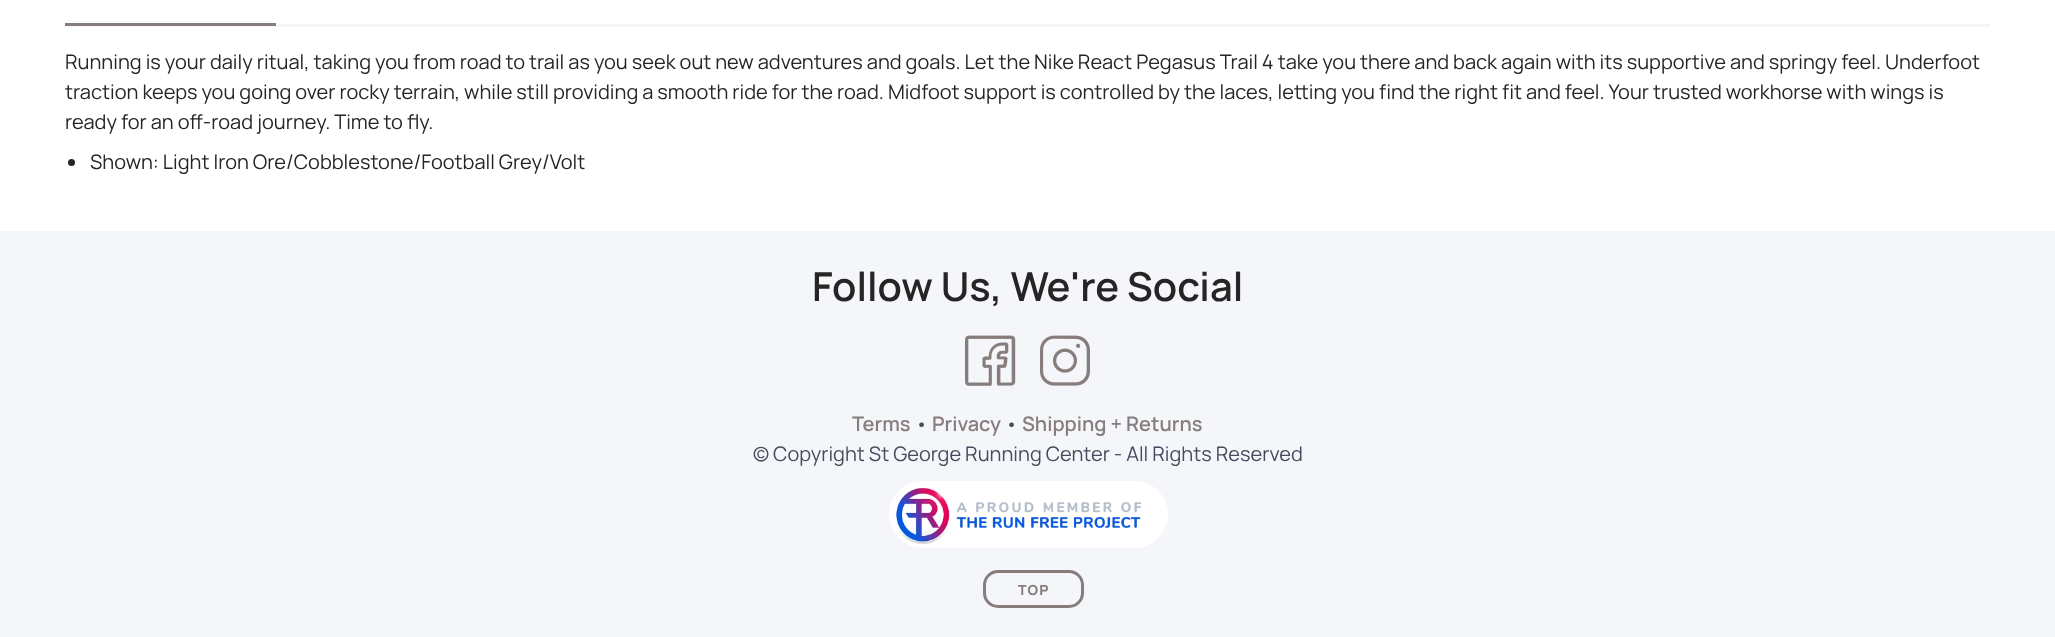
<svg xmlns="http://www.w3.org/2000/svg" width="2055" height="637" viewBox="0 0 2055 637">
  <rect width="100%" height="100%" fill="rgb(255,255,255)"/>
  <rect x="65" y="24" width="1925" height="3" fill="rgb(245,246,250)"/>
  <rect x="65" y="23" width="211" height="3" fill="rgb(135,125,124)"/>
  <g font-family="Manrope" font-size="20" fill="rgb(37,37,37)">
    <text>
      <tspan x="65" y="69">Running is your daily ritual, taking you from road to trail as you seek out new adventures and goals. Let the Nike React Pegasus Trail 4 take you there and back again with its supportive and springy feel. Underfoot</tspan>
      <tspan x="65" y="99">traction keeps you going over rocky terrain, while still providing a smooth ride for the road. Midfoot support is controlled by the laces, letting you find the right fit and feel. Your trusted workhorse with wings is</tspan>
      <tspan x="65" y="129">ready for an off-road journey. Time to fly.</tspan>
    </text>
  </g>
  <circle cx="71.5" cy="162.5" r="3.5" fill="rgb(37,37,37)"/>
  <text x="90" y="169" font-family="Manrope" font-size="20" fill="rgb(37,37,37)">Shown: Light Iron Ore/Cobblestone/Football Grey/Volt</text>
  <rect x="0" y="231" width="2055" height="406" fill="rgb(245,246,250)"/>
  <text x="812" y="301" font-family="Manrope" font-size="40" font-weight="600" fill="rgb(37,37,37)">Follow Us, We're Social</text>
  <image x="965" y="335" width="51" height="51" href="pic1.png"/>
  <image x="1040" y="335" width="50" height="51" href="pic2.png"/>
  <text x="852" y="431" font-family="Manrope" font-size="20" font-weight="600" fill="rgb(135,125,124)">Terms</text>
  <text x="915" y="431" font-family="Manrope" font-size="20" fill="rgb(67,76,94)">•</text>
  <text x="932" y="431" font-family="Manrope" font-size="20" font-weight="600" fill="rgb(135,125,124)">Privacy</text>
  <text x="1005" y="431" font-family="Manrope" font-size="20" fill="rgb(67,76,94)">•</text>
  <text x="1022" y="431" font-family="Manrope" font-size="20" font-weight="600" fill="rgb(135,125,124)">Shipping + Returns</text>
  <text x="753" y="461" font-family="Manrope" font-size="20" fill="rgb(67,76,94)">© Copyright St George Running Center - All Rights Reserved</text>
  <rect x="889" y="481" width="279" height="67" rx="33.5" fill="rgb(255,255,255)"/>
  <image x="896" y="487" width="246" height="57" href="pic3.png"/>
  <rect x="984.5" y="571.5" width="98" height="35" rx="13.5" fill="none" stroke="rgb(135,125,124)" stroke-width="3"/>
  <text x="1018" y="595" font-family="Manrope" font-size="14" font-weight="800" letter-spacing="1" fill="rgb(135,125,124)">TOP</text>
</svg>
